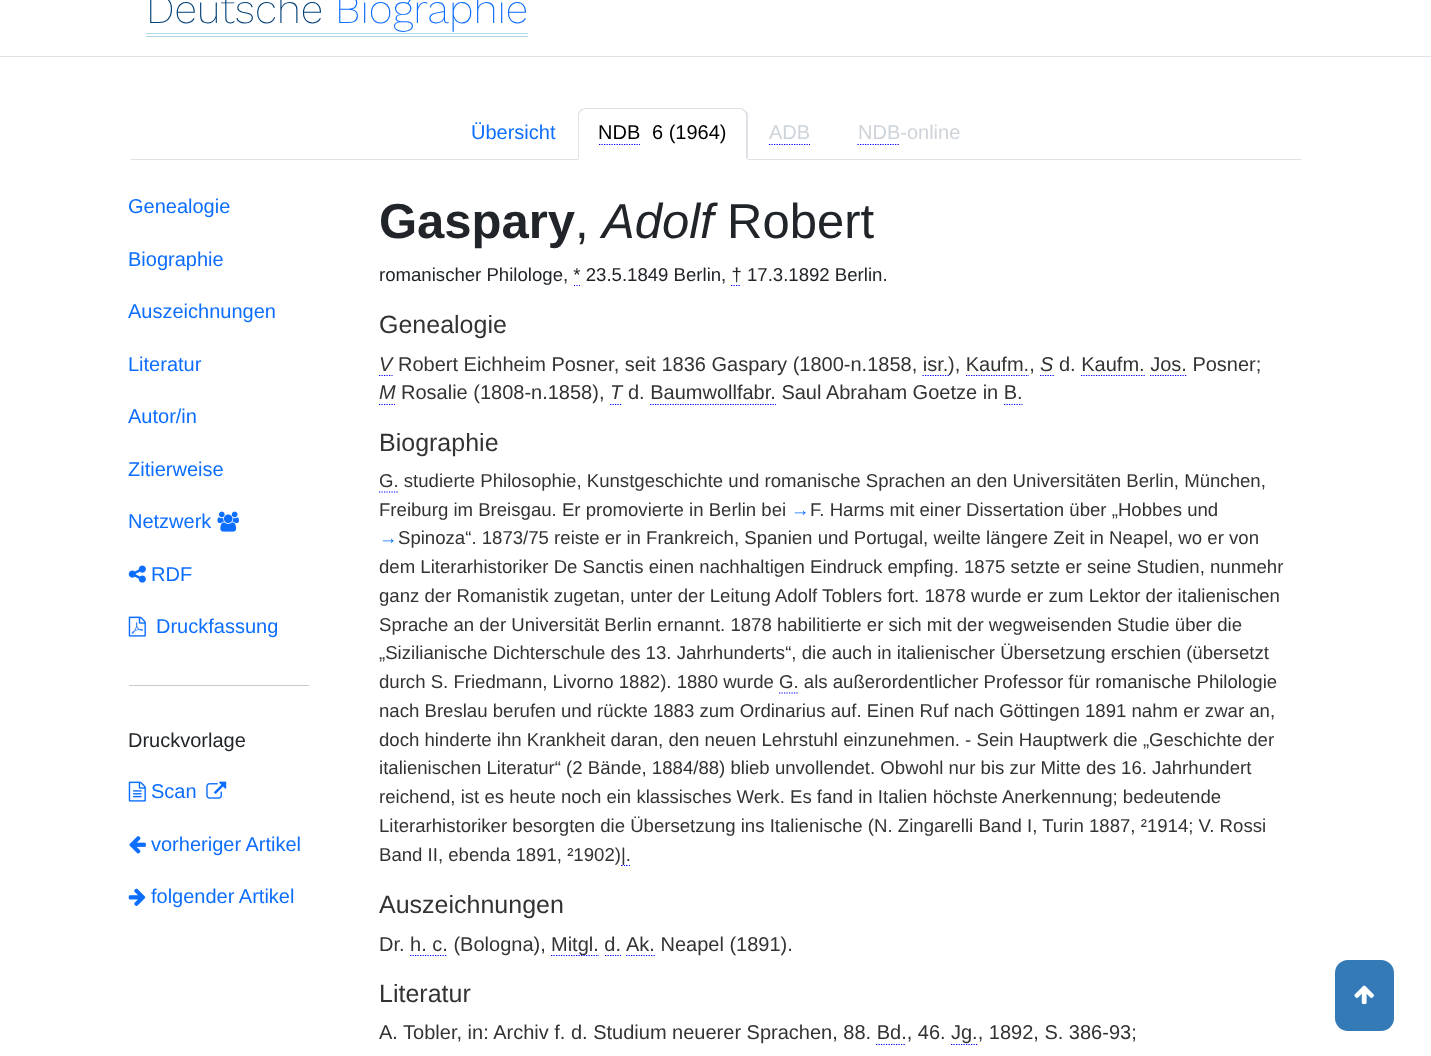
<svg xmlns="http://www.w3.org/2000/svg" width="1431" height="1056" viewBox="0 0 1431 1056">
  <rect width="100%" height="100%" fill="rgb(255,255,255)"/>
  <rect x="0" y="56" width="1431" height="1" fill="rgb(222,226,230)"/>
  <text x="146" y="23" font-family="Work Sans" font-size="41.25" font-weight="200" fill="rgb(0,64,119)">Deutsche</text>
  <text x="335" y="23" font-family="Work Sans" font-size="41.25" font-weight="200" fill="rgb(13,110,253)">Biographie</text>
  <rect x="146" y="33" width="382" height="1" fill="rgb(173,216,230)"/>
  <rect x="146" y="36" width="382" height="1" fill="rgb(173,216,230)"/>
  <rect x="131" y="159" width="1170" height="1" fill="rgb(222,226,230)"/>
  <text x="471" y="139" font-family="Liberation Sans" font-size="20" fill="rgb(13,110,253)">Übersicht</text>
  <path d="M586 108H740C744.5 108 748 111.5 748 116V160H578V116C578 111.5 581.5 108 586 108Z" fill="rgb(255,255,255)"/>
  <path d="M585 108C583 108 581 109 580 110L581 111L584 109H741L744 111L745 110C744 109 742 108 740 108Z" fill="rgb(222,226,230)"/>
  <path d="M745 110L748 113V160L746 158V115C746 114 745 112 744 111Z" fill="rgb(222,226,230)"/>
  <path d="M748 160L746 158V159H579V158L578 160Z" fill="rgb(255,255,255)"/>
  <path d="M580 110C579 111 578 113 578 115V160L579 158V115C579 114 580 112 581 111Z" fill="rgb(222,226,230)"/>
  <text x="598" y="139" font-family="Liberation Sans" font-size="20" fill="rgb(0,0,0)">NDB</text>
  <path d="M599 144.5H640" fill="none" stroke="rgb(0,0,255)" stroke-width="1.2" stroke-dasharray="1.25 1.25"/>
  <text x="652" y="139" font-family="Liberation Sans" font-size="20" fill="rgb(0,0,0)">6 (1964)</text>
  <text x="769" y="139" font-family="Liberation Sans" font-size="20" fill="rgb(206,212,218)">ADB</text>
  <path d="M769 144.5H810" fill="none" stroke="rgb(0,0,255)" stroke-width="1.2" stroke-dasharray="1.25 1.25"/>
  <text x="858" y="139" font-family="Liberation Sans" font-size="20" fill="rgb(206,212,218)">NDB-online</text>
  <path d="M857.5 144.5H900" fill="none" stroke="rgb(0,0,255)" stroke-width="1.2" stroke-dasharray="1.25 1.25"/>
  <g font-family="Liberation Sans" font-size="20" fill="rgb(13,110,253)">
    <text x="128" y="213">Genealogie</text>
    <text x="128" y="266">Biographie</text>
    <text x="128" y="318">Auszeichnungen</text>
    <text x="128" y="371">Literatur</text>
    <text x="128" y="423">Autor/in</text>
    <text x="128" y="476">Zitierweise</text>
    <text x="128" y="528">Netzwerk</text>
  </g>
  <image x="217" y="511" width="22" height="21" href="pic1.png"/>
  <image x="128" y="565" width="18" height="18" href="pic2.png"/>
  <text x="151" y="581" font-family="Liberation Sans" font-size="20" fill="rgb(13,110,253)">RDF</text>
  <image x="128" y="616" width="18" height="21" href="pic3.png"/>
  <text x="156" y="633" font-family="Liberation Sans" font-size="20" fill="rgb(13,110,253)">Druckfassung</text>
  <rect x="129" y="685" width="180" height="1" fill="rgb(200,201,202)"/>
  <text x="128" y="747" font-family="Liberation Sans" font-size="20" fill="rgb(33,37,41)">Druckvorlage</text>
  <image x="128" y="781" width="18" height="21" href="pic4.png"/>
  <text x="151" y="798" font-family="Liberation Sans" font-size="20" fill="rgb(13,110,253)">Scan</text>
  <image x="206" y="781" width="21" height="18" href="pic5.png"/>
  <image x="129" y="836" width="17" height="18" href="pic6.png"/>
  <text x="151" y="851" font-family="Liberation Sans" font-size="20" fill="rgb(13,110,253)">vorheriger Artikel</text>
  <image x="128" y="888" width="18" height="18" href="pic7.png"/>
  <text x="151" y="903" font-family="Liberation Sans" font-size="20" fill="rgb(13,110,253)">folgender Artikel</text>
  <text x="379" y="238" font-family="Liberation Sans" font-size="49" font-weight="bold" fill="rgb(33,37,41)">Gaspary</text>
  <text x="575" y="238" font-family="Liberation Sans" font-size="49" fill="rgb(33,37,41)">,</text>
  <text x="602" y="238" font-family="Liberation Sans" font-size="49" font-style="italic" fill="rgb(33,37,41)">Adolf</text>
  <text x="727" y="238" font-family="Liberation Sans" font-size="49" fill="rgb(33,37,41)">Robert</text>
  <text x="379" y="281" font-family="Liberation Sans" font-size="18.6" fill="rgb(33,37,41)">romanischer Philologe, * 23.5.1849 Berlin, † 17.3.1892 Berlin.</text>
  <path d="M574 285.5H575M576.5 285.5H577.5M579 285.5H580" fill="none" stroke="rgb(0,0,255)" stroke-width="1.2"/>
  <path d="M731 285.5H741" fill="none" stroke="rgb(0,0,255)" stroke-width="1.2" stroke-dasharray="1.25 1.25"/>
  <text x="379" y="333" font-family="Liberation Sans" font-size="25" fill="rgb(51,51,51)">Genealogie</text>
  <text x="379" y="371" font-family="Liberation Sans" font-size="20" font-style="italic" fill="rgb(51,51,51)">V</text>
  <path d="M379 375.5H392.5" fill="none" stroke="rgb(0,0,255)" stroke-width="1.2" stroke-dasharray="1.25 1.25"/>
  <text x="398" y="371" font-family="Liberation Sans" font-size="20" fill="rgb(51,51,51)">Robert Eichheim Posner, seit 1836 Gaspary (1800-n.1858, isr.</text>
  <path d="M922.5 375.5H949" fill="none" stroke="rgb(0,0,255)" stroke-width="1.2" stroke-dasharray="1.25 1.25"/>
  <text x="948" y="371" font-family="Liberation Sans" font-size="20" fill="rgb(51,51,51)">), Kaufm.,</text>
  <text x="1040" y="371" font-family="Liberation Sans" font-size="20" font-style="italic" fill="rgb(51,51,51)">S</text>
  <path d="M1040 375.5H1054" fill="none" stroke="rgb(0,0,255)" stroke-width="1.2" stroke-dasharray="1.25 1.25"/>
  <text x="1059" y="371" font-family="Liberation Sans" font-size="20" fill="rgb(51,51,51)">d. Kaufm. Jos. Posner;</text>
  <path d="M966 375.5H1029" fill="none" stroke="rgb(0,0,255)" stroke-width="1.2" stroke-dasharray="1.25 1.25"/>
  <path d="M1081 375.5H1145" fill="none" stroke="rgb(0,0,255)" stroke-width="1.2" stroke-dasharray="1.25 1.25"/>
  <path d="M1150 375.5H1187.5" fill="none" stroke="rgb(0,0,255)" stroke-width="1.2" stroke-dasharray="1.25 1.25"/>
  <text x="379" y="399" font-family="Liberation Sans" font-size="20" font-style="italic" fill="rgb(51,51,51)">M</text>
  <path d="M379 404.5H395" fill="none" stroke="rgb(0,0,255)" stroke-width="1.2" stroke-dasharray="1.25 1.25"/>
  <text x="401" y="399" font-family="Liberation Sans" font-size="20" fill="rgb(51,51,51)">Rosalie (1808-n.1858),</text>
  <text x="610" y="399" font-family="Liberation Sans" font-size="20" font-style="italic" fill="rgb(51,51,51)">T</text>
  <path d="M610 404.5H622.5" fill="none" stroke="rgb(0,0,255)" stroke-width="1.2" stroke-dasharray="1.25 1.25"/>
  <text x="628" y="399" font-family="Liberation Sans" font-size="20" fill="rgb(51,51,51)">d. Baumwollfabr. Saul Abraham Goetze in B.</text>
  <path d="M650 404.5H776" fill="none" stroke="rgb(0,0,255)" stroke-width="1.2" stroke-dasharray="1.25 1.25"/>
  <path d="M1004 404.5H1022.5" fill="none" stroke="rgb(0,0,255)" stroke-width="1.2" stroke-dasharray="1.25 1.25"/>
  <text x="379" y="451" font-family="Liberation Sans" font-size="25" fill="rgb(51,51,51)">Biographie</text>
  <text x="379" y="487" font-family="Liberation Sans" font-size="18.6" fill="rgb(51,51,51)">G. studierte Philosophie, Kunstgeschichte und romanische Sprachen an den Universitäten Berlin, München,</text>
  <path d="M379 492H399" fill="none" stroke="rgb(0,0,255)" stroke-width="1.2" stroke-dasharray="1.25 1.25"/>
  <text x="379" y="516" font-family="Liberation Sans" font-size="18.6" fill="rgb(51,51,51)">Freiburg im Breisgau. Er promovierte in Berlin bei</text>
  <text x="791" y="516" font-family="Liberation Sans" font-size="18.6" fill="rgb(13,110,253)">→</text>
  <text x="810" y="516" font-family="Liberation Sans" font-size="18.6" fill="rgb(51,51,51)">F. Harms mit einer Dissertation über „Hobbes und</text>
  <text x="379" y="544" font-family="Liberation Sans" font-size="18.6" fill="rgb(13,110,253)">→</text>
  <g font-family="Liberation Sans" font-size="18.6" fill="rgb(51,51,51)">
    <text x="398" y="544">Spinoza“. 1873/75 reiste er in Frankreich, Spanien und Portugal, weilte längere Zeit in Neapel, wo er von</text>
    <text>
      <tspan x="379" y="573">dem Literarhistoriker De Sanctis einen nachhaltigen Eindruck empfing. 1875 setzte er seine Studien, nunmehr</tspan>
      <tspan x="379" y="602">ganz der Romanistik zugetan, unter der Leitung Adolf Toblers fort. 1878 wurde er zum Lektor der italienischen</tspan>
      <tspan x="379" y="631">Sprache an der Universität Berlin ernannt. 1878 habilitierte er sich mit der wegweisenden Studie über die</tspan>
      <tspan x="379" y="659">„Sizilianische Dichterschule des 13. Jahrhunderts“, die auch in italienischer Übersetzung erschien (übersetzt</tspan>
      <tspan x="379" y="688">durch S. Friedmann, Livorno 1882). 1880 wurde G. als außerordentlicher Professor für romanische Philologie</tspan>
    </text>
  </g>
  <path d="M779 693H799" fill="none" stroke="rgb(0,0,255)" stroke-width="1.2" stroke-dasharray="1.25 1.25"/>
  <g font-family="Liberation Sans" font-size="18.6" fill="rgb(51,51,51)">
    <text>
      <tspan x="379" y="717">nach Breslau berufen und rückte 1883 zum Ordinarius auf. Einen Ruf nach Göttingen 1891 nahm er zwar an,</tspan>
      <tspan x="379" y="746">doch hinderte ihn Krankheit daran, den neuen Lehrstuhl einzunehmen. - Sein Hauptwerk die „Geschichte der</tspan>
      <tspan x="379" y="774">italienischen Literatur“ (2 Bände, 1884/88) blieb unvollendet. Obwohl nur bis zur Mitte des 16. Jahrhundert</tspan>
      <tspan x="379" y="803">reichend, ist es heute noch ein klassisches Werk. Es fand in Italien höchste Anerkennung; bedeutende</tspan>
      <tspan x="379" y="832">Literarhistoriker besorgten die Übersetzung ins Italienische (N. Zingarelli Band I, Turin 1887, ²1914; V. Rossi</tspan>
      <tspan x="379" y="861">Band II, ebenda 1891, ²1902)</tspan>
    </text>
  </g>
  <path d="M621 865.5H622.5M624 865.5H625" fill="none" stroke="rgb(0,0,255)" stroke-width="1.2"/>
  <text x="621" y="861" font-family="Liberation Sans" font-size="18.6" fill="rgb(51,51,51)">|.</text>
  <path d="M626 865.5H627.5M629 865.5H630" fill="none" stroke="rgb(0,0,255)" stroke-width="1.2"/>
  <text x="379" y="913" font-family="Liberation Sans" font-size="25" fill="rgb(51,51,51)">Auszeichnungen</text>
  <text x="379" y="951" font-family="Liberation Sans" font-size="20" fill="rgb(51,51,51)">Dr. h. c. (Bologna),</text>
  <path d="M551 955.5H599" fill="none" stroke="rgb(0,0,255)" stroke-width="1.2" stroke-dasharray="1.25 1.25"/>
  <text x="551" y="951" font-family="Liberation Sans" font-size="20" fill="rgb(51,51,51)">Mitgl. d.</text>
  <path d="M605 955.5H621M626 955.5H655" fill="none" stroke="rgb(0,0,255)" stroke-width="1.2" stroke-dasharray="1.25 1.25"/>
  <text x="626" y="951" font-family="Liberation Sans" font-size="20" fill="rgb(51,51,51)">Ak. Neapel (1891).</text>
  <path d="M410 955.5H447.5" fill="none" stroke="rgb(0,0,255)" stroke-width="1.2" stroke-dasharray="1.25 1.25"/>
  <text x="379" y="1002" font-family="Liberation Sans" font-size="25" fill="rgb(51,51,51)">Literatur</text>
  <text x="379" y="1039" font-family="Liberation Sans" font-size="20" fill="rgb(51,51,51)">A. Tobler, in: Archiv f. d. Studium neuerer Sprachen, 88. Bd., 46.</text>
  <path d="M951 1044.5H977.5" fill="none" stroke="rgb(0,0,255)" stroke-width="1.2" stroke-dasharray="1.25 1.25"/>
  <text x="951" y="1039" font-family="Liberation Sans" font-size="20" fill="rgb(51,51,51)">Jg., 1892, S. 386-93;</text>
  <path d="M876 1044.5H906" fill="none" stroke="rgb(0,0,255)" stroke-width="1.2" stroke-dasharray="1.25 1.25"/>
  <rect x="1335" y="960" width="59" height="71" rx="13" fill="rgb(51,122,183)"/>
  <image x="1354" y="985" width="20" height="20" href="pic8.png"/>
</svg>
